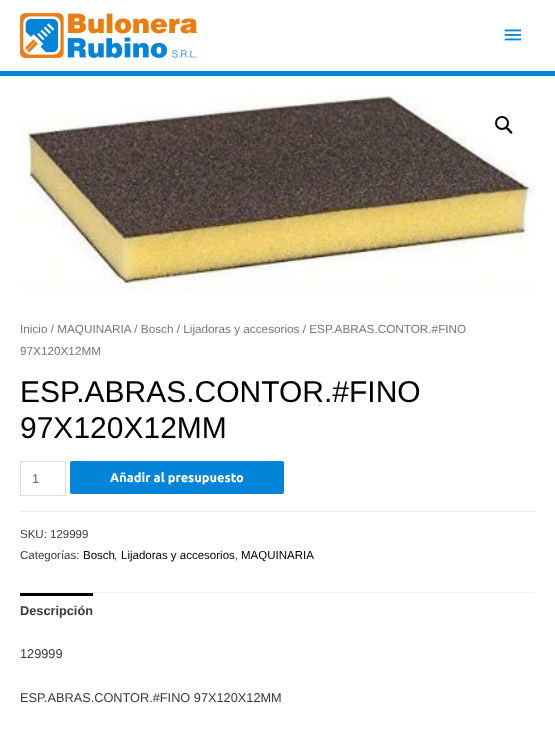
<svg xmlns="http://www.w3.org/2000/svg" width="555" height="746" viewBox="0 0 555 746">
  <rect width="100%" height="100%" fill="rgb(255,255,255)"/>
  <rect x="0" y="71" width="555" height="5" fill="rgb(2,132,216)"/>
  <image x="20" y="13" width="177" height="45" href="pic1.png"/>
  <image x="504" y="29" width="17" height="12" href="pic2.png"/>
  <image x="20" y="95" width="515" height="198" href="pic3.png"/>
  <circle cx="504" cy="125" r="18" fill="rgb(255,255,255)"/>
  <circle cx="502" cy="123" r="6" fill="none" stroke="rgb(0,0,0)" stroke-width="2"/>
  <path d="M506.5 127.5C507.5 126.5 509.5 129 510 129.5C510.5 130.5 513.5 132 512 133.5C511 134.5 509 132 508.5 131C508 130.5 505 129 506.5 127.5Z" fill="rgb(0,0,0)"/>
  <g font-family="Liberation Sans" font-size="11.75" fill="rgb(119,119,119)">
    <text>
      <tspan x="20" y="333">Inicio / MAQUINARIA / Bosch / Lijadoras y accesorios / ESP.ABRAS.CONTOR.#FINO</tspan>
      <tspan x="20" y="355">97X120X12MM</tspan>
    </text>
  </g>
  <g font-family="Liberation Sans" font-size="30" fill="rgb(0,0,0)">
    <text>
      <tspan x="20" y="402">ESP.ABRAS.CONTOR.#FINO</tspan>
      <tspan x="20" y="438">97X120X12MM</tspan>
    </text>
  </g>
  <rect x="20.5" y="461.5" width="45" height="34" fill="none" stroke="rgb(221,221,221)"/>
  <text x="32" y="483" font-family="Liberation Sans" font-size="12.75" fill="rgb(102,102,102)">1</text>
  <rect x="70" y="461" width="214" height="33" rx="2" fill="rgb(2,132,216)"/>
  <text x="110" y="482" font-family="Ubuntu" font-size="12.75" font-weight="bold" fill="rgb(255,255,255)">Añadir al presupuesto</text>
  <rect x="20" y="511" width="515" height="1" fill="rgb(235,235,235)"/>
  <g font-family="Liberation Sans" font-size="11.5" fill="rgb(58,58,58)">
    <text>
      <tspan x="20" y="538">SKU: 129999</tspan>
      <tspan x="20" y="559">Categorías:</tspan>
    </text>
  </g>
  <text x="83" y="559" font-family="Liberation Sans" font-size="11.5" fill="rgb(0,0,0)">Bosch</text>
  <text x="114" y="559" font-family="Liberation Sans" font-size="11.5" fill="rgb(58,58,58)">,</text>
  <text x="121" y="559" font-family="Liberation Sans" font-size="11.5" fill="rgb(0,0,0)">Lijadoras y accesorios</text>
  <text x="235" y="559" font-family="Liberation Sans" font-size="11.5" fill="rgb(58,58,58)">,</text>
  <text x="241" y="559" font-family="Liberation Sans" font-size="11.5" fill="rgb(0,0,0)">MAQUINARIA</text>
  <rect x="20" y="592" width="515" height="1" fill="rgb(242,242,242)"/>
  <rect x="20" y="593" width="73" height="3" fill="rgb(0,0,0)"/>
  <text x="20" y="615" font-family="Liberation Sans" font-size="12.75" font-weight="bold" fill="rgb(58,58,58)">Descripción</text>
  <g font-family="Liberation Sans" font-size="12.75" fill="rgb(58,58,58)">
    <text x="20" y="658">129999</text>
    <text x="20" y="702">ESP.ABRAS.CONTOR.#FINO 97X120X12MM</text>
  </g>
</svg>
